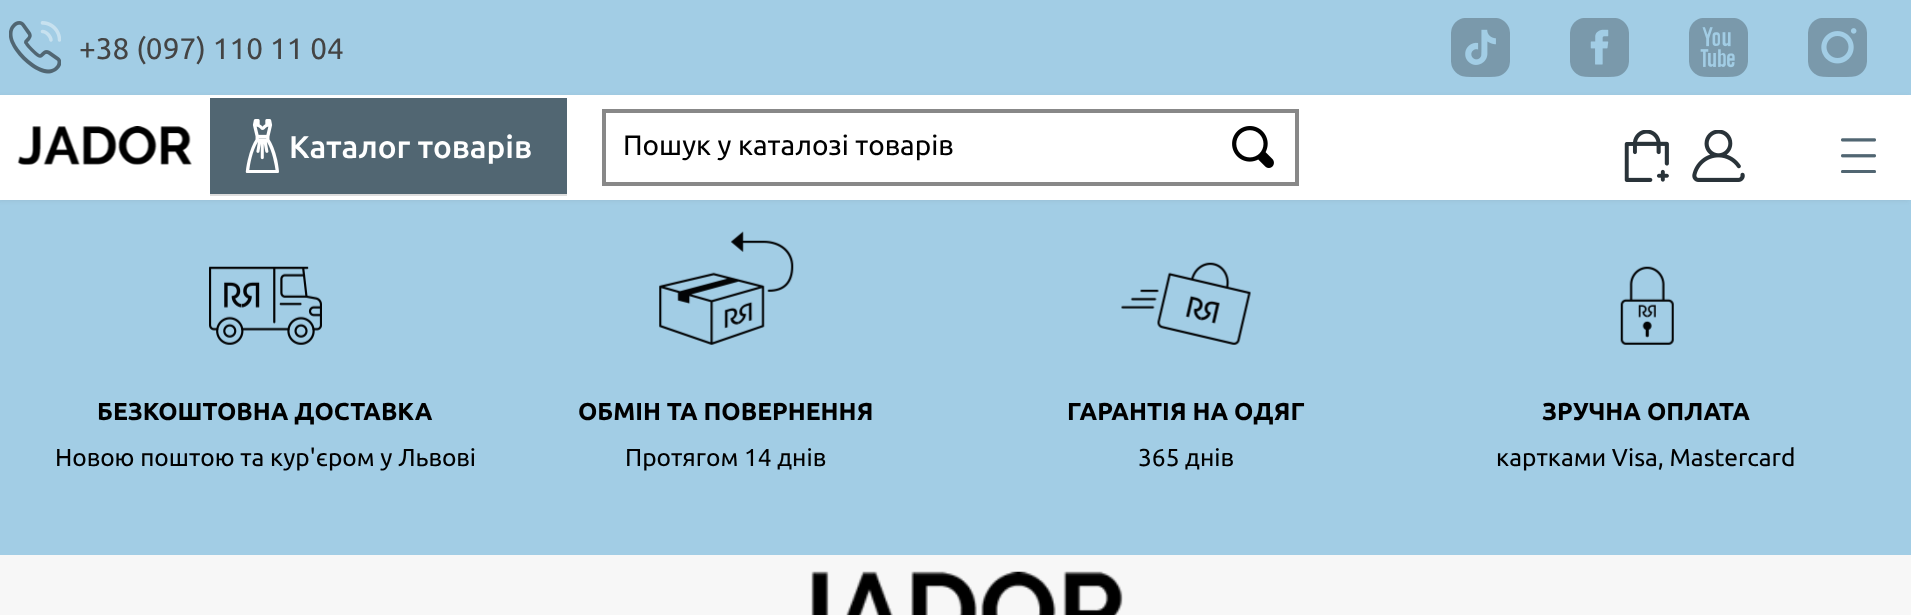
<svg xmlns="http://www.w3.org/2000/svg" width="1911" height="615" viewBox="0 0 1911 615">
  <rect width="100%" height="100%" fill="rgb(162,205,229)"/>
  <image x="9" y="21" width="52" height="53" href="pic1.png"/>
  <text x="79" y="59" font-family="Ubuntu" font-size="29.75" fill="rgb(68,68,68)">+38 (097) 110 11 04</text>
  <image x="1451" y="18" width="59" height="59" href="pic2.png"/>
  <image x="1570" y="18" width="59" height="59" href="pic3.png"/>
  <image x="1689" y="18" width="59" height="59" href="pic4.png"/>
  <image x="1808" y="18" width="59" height="59" href="pic5.png"/>
  <rect x="-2" y="96" width="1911" height="105" fill="rgba(81,74,74,0.09)" filter="blur(2px)"/>
  <rect x="0" y="95" width="1911" height="105" fill="rgb(255,255,255)"/>
  <image x="17" y="126" width="175" height="39" href="pic6.png"/>
  <rect x="210" y="194" width="357" height="2" fill="rgb(221,221,221)"/>
  <rect x="210" y="98" width="357" height="96" fill="rgb(81,102,114)"/>
  <image x="245" y="119" width="34" height="54" href="pic7.png"/>
  <text x="289" y="158" font-family="Ubuntu" font-size="31.5" font-weight="500" fill="rgb(255,255,255)">Каталог товарів</text>
  <rect x="604" y="111" width="693" height="73" fill="none" stroke="rgb(136,136,136)" stroke-width="4"/>
  <text x="623" y="155" font-family="Ubuntu" font-size="28" fill="rgb(0,0,0)">Пошук у каталозі товарів</text>
  <image x="1232" y="126" width="42" height="42" href="pic8.png"/>
  <image x="1624" y="130" width="45" height="52" href="pic9.png"/>
  <image x="1692" y="130" width="53" height="52" href="pic10.png"/>
  <image x="1841" y="138" width="35" height="35" href="pic11.png"/>
  <image x="209" y="266" width="113" height="79" href="pic12.png"/>
  <text x="97" y="420" font-family="Ubuntu" font-size="24.5" font-weight="bold" fill="rgb(0,0,0)">БЕЗКОШТОВНА ДОСТАВКА</text>
  <text x="55" y="466" font-family="Ubuntu" font-size="24.5" fill="rgb(0,0,0)">Новою поштою та кур'єром у Львові</text>
  <image x="659" y="231" width="135" height="114" href="pic13.png"/>
  <text x="578" y="420" font-family="Ubuntu" font-size="24.5" font-weight="bold" fill="rgb(0,0,0)">ОБМІН ТА ПОВЕРНЕННЯ</text>
  <text x="625" y="466" font-family="Ubuntu" font-size="24.5" fill="rgb(0,0,0)">Протягом 14 днів</text>
  <image x="1121" y="262" width="130" height="83" href="pic14.png"/>
  <text x="1067" y="420" font-family="Ubuntu" font-size="24.5" font-weight="bold" fill="rgb(0,0,0)">ГАРАНТІЯ НА ОДЯГ</text>
  <text x="1138" y="466" font-family="Ubuntu" font-size="24.5" fill="rgb(0,0,0)">365 днів</text>
  <image x="1620" y="266" width="54" height="79" href="pic15.png"/>
  <text x="1542" y="420" font-family="Ubuntu" font-size="24.5" font-weight="bold" fill="rgb(0,0,0)">ЗРУЧНА ОПЛАТА</text>
  <text x="1496" y="466" font-family="Ubuntu" font-size="24.5" fill="rgb(0,0,0)">картками Visa, Mastercard</text>
  <rect x="0" y="555" width="1911" height="60" fill="rgb(247,247,247)"/>
  <image x="811" y="571" width="312" height="44" href="pic16.png"/>
</svg>
